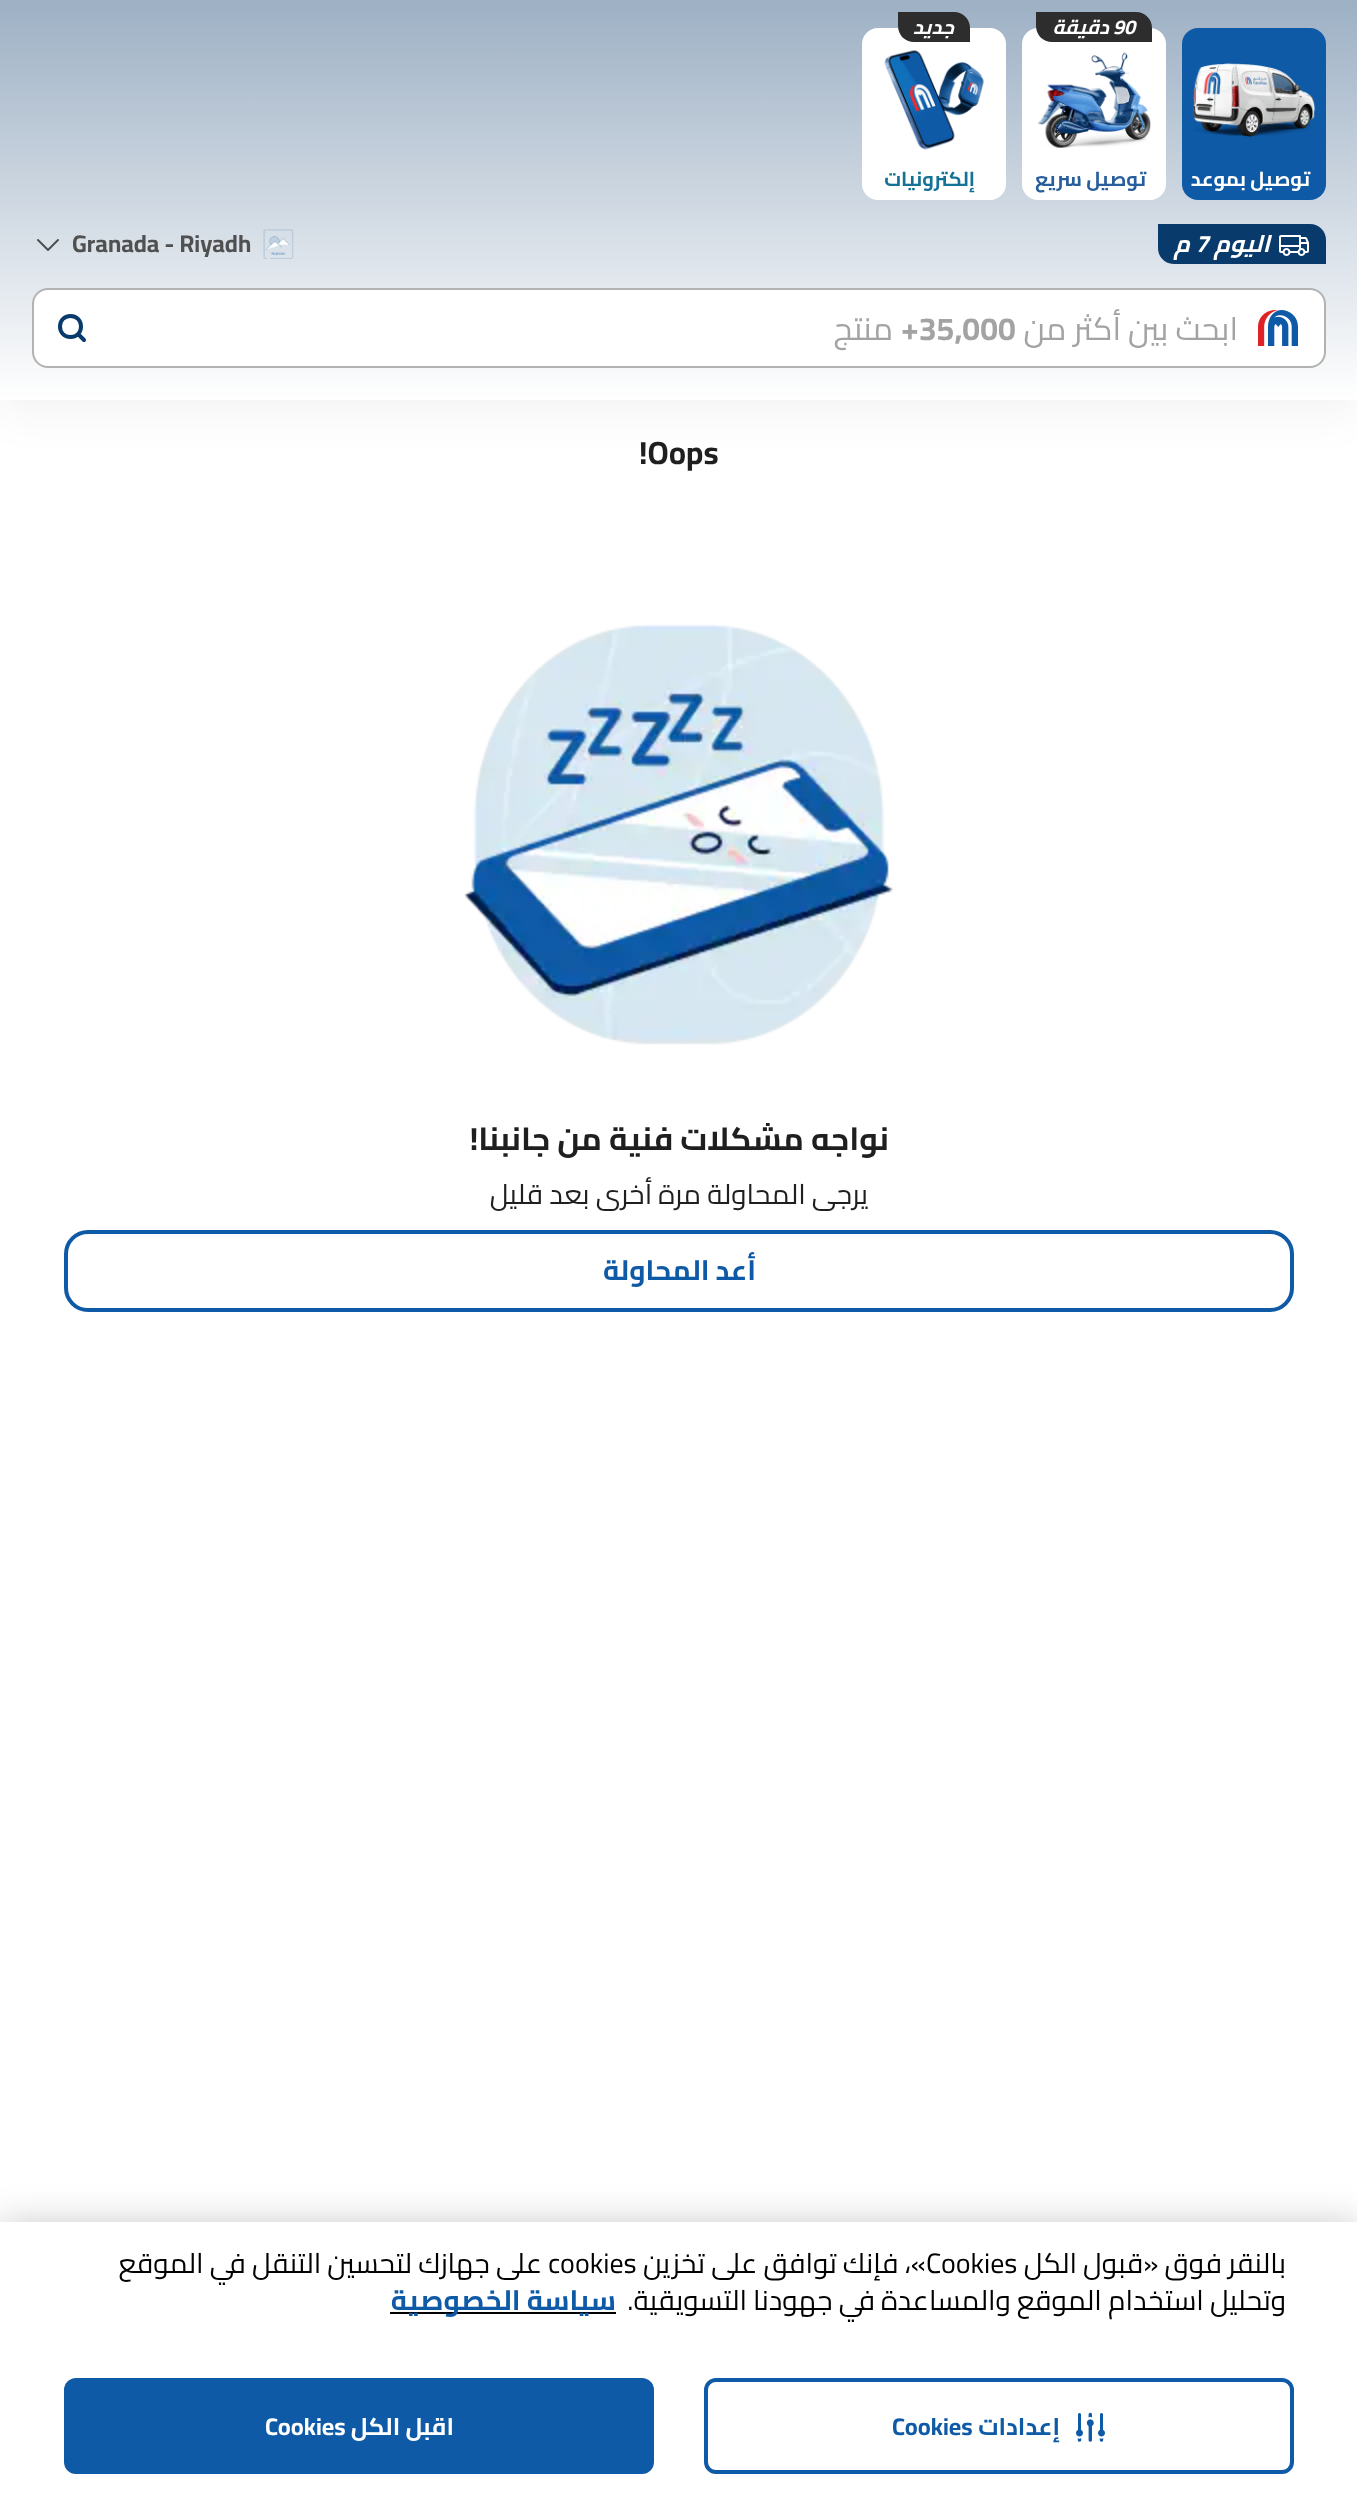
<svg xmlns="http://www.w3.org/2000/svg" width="1357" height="2505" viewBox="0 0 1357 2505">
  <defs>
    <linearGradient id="g1" gradientUnits="userSpaceOnUse" x1="679" y1="0" x2="679" y2="400"><stop offset="0" stop-color="rgb(157,176,196)"/><stop offset="1" stop-color="rgb(255,255,255)"/></linearGradient>
  </defs>
  <rect width="100%" height="100%" fill="rgb(255,255,255)"/>
  <rect x="0" y="8" width="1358" height="400" fill="rgba(0,0,0,0.06)" filter="blur(24px)"/>
  <rect x="0" y="0" width="1357" height="400" fill="url(#g1)"/>
  <rect x="1182" y="28" width="144" height="172" rx="16" fill="rgb(14,90,167)"/>
  <image x="1193" y="63" width="123" height="74" href="pic1.png"/>
  <text x="1310" y="186" font-family="Cairo" font-size="20" font-weight="bold" direction="rtl" fill="rgb(255,255,255)">توصيل بموعد</text>
  <rect x="1022" y="28" width="144" height="172" rx="16" fill="rgb(255,255,255)"/>
  <path d="M1036 12H1136C1145 12 1152 19 1152 28V42H1052C1043 42 1036 35 1036 26Z" fill="rgb(45,45,45)"/>
  <text x="1113" y="34" font-family="Cairo" font-size="20" font-weight="bold" font-style="italic" fill="rgb(255,255,255)">90</text>
  <text x="1109" y="34" font-family="Cairo" font-size="20" font-weight="bold" font-style="italic" direction="rtl" fill="rgb(255,255,255)">دقيقة</text>
  <image x="1037" y="52" width="114" height="96" href="pic2.png"/>
  <text x="1146" y="186" font-family="Cairo" font-size="20" font-weight="bold" direction="rtl" fill="rgb(40,94,156)">توصيل سريع</text>
  <rect x="862" y="28" width="144" height="172" rx="16" fill="rgb(255,255,255)"/>
  <path d="M898 12H954C963 12 970 19 970 28V42H914C905 42 898 35 898 26Z" fill="rgb(45,45,45)"/>
  <text x="954" y="34" font-family="Cairo" font-size="20" font-weight="bold" font-style="italic" direction="rtl" fill="rgb(255,255,255)">جديد</text>
  <image x="884" y="50" width="100" height="100" href="pic3.png"/>
  <text x="975" y="186" font-family="Cairo" font-size="20" font-weight="bold" direction="rtl" fill="rgb(21,114,150)">إلكترونيات</text>
  <path d="M1158 224H1310C1319 224 1326 231 1326 240V264H1174C1165 264 1158 257 1158 248Z" fill="rgb(9,58,108)"/>
  <image x="1279" y="235" width="30" height="21" href="pic4.png"/>
  <text x="1270" y="252" font-family="Cairo" font-size="24" font-weight="bold" font-style="italic" direction="rtl" fill="rgb(255,255,255)">اليوم</text>
  <text x="1195" y="252" font-family="Cairo" font-size="24" font-weight="bold" font-style="italic" fill="rgb(255,255,255)">7</text>
  <text x="1190" y="252" font-family="Cairo" font-size="24" font-weight="bold" font-style="italic" direction="rtl" fill="rgb(255,255,255)">م</text>
  <image x="263" y="229" width="31" height="30" href="pic5.png"/>
  <text x="72" y="252" font-family="Cairo" font-size="24" font-weight="bold" fill="rgb(80,80,80)">Granada - Riyadh</text>
  <path d="M58 240L48 250L38 240" fill="none" stroke="rgb(80,80,80)" stroke-width="2" stroke-linecap="round" stroke-linejoin="round"/>
  <rect x="33" y="289" width="1292" height="78" rx="15" fill="rgb(255,255,255)" stroke="rgb(178,178,178)" stroke-width="2"/>
  <image x="1258" y="310" width="40" height="36" href="pic6.png"/>
  <text x="1238" y="340" font-family="Cairo" font-size="32" direction="rtl" fill="rgb(163,163,163)">ابحث بين أكثر من</text>
  <text x="901" y="340" font-family="Cairo" font-size="32" font-weight="bold" fill="rgb(163,163,163)">+35,000</text>
  <text x="893" y="340" font-family="Cairo" font-size="32" direction="rtl" fill="rgb(163,163,163)">منتج</text>
  <path d="M70.5 337C84.5 337 84.5 316 70.5 316C56.5 316 56.5 337 70.5 337ZM78 334L84 340" fill="none" stroke="rgb(9,58,108)" stroke-width="4" stroke-linecap="round" stroke-linejoin="round"/>
  <text x="639" y="464" font-family="Cairo" font-size="32" font-weight="bold" fill="rgb(31,31,31)">!Oops</text>
  <image x="464" y="624" width="429" height="421" href="pic7.png"/>
  <text x="889" y="1150" font-family="Cairo" font-size="32" font-weight="bold" direction="rtl" fill="rgb(31,31,31)">نواجه مشكلات فنية من جانبنا!</text>
  <text x="868" y="1204" font-family="Cairo" font-size="28" direction="rtl" fill="rgb(31,31,31)">يرجى المحاولة مرة أخرى بعد قليل</text>
  <rect x="66" y="1232" width="1226" height="78" rx="22" fill="none" stroke="rgb(14,90,167)" stroke-width="4"/>
  <text x="756" y="1280" font-family="Cairo" font-size="28" font-weight="bold" direction="rtl" fill="rgb(14,90,167)">أعد المحاولة</text>
  <rect x="0" y="2222" width="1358" height="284" fill="rgba(0,0,0,0.2)" filter="blur(18px)"/>
  <rect x="0" y="2222" width="1357" height="283" fill="rgb(255,255,255)"/>
  <text x="1286" y="2273" font-family="Cairo" font-size="28" direction="rtl" fill="rgb(0,0,0)">بالنقر فوق «قبول الكل</text>
  <text x="926" y="2273" font-family="Cairo" font-size="28" fill="rgb(0,0,0)">Cookies</text>
  <text x="926" y="2273" font-family="Cairo" font-size="28" direction="rtl" fill="rgb(0,0,0)">»، فإنك توافق على تخزين</text>
  <text x="548" y="2273" font-family="Cairo" font-size="28" fill="rgb(0,0,0)">cookies</text>
  <g font-family="Cairo" font-size="28" direction="rtl" fill="rgb(0,0,0)">
    <text x="542" y="2273">على جهازك لتحسين التنقل في الموقع</text>
    <text x="1286" y="2310">وتحليل استخدام الموقع والمساعدة في جهودنا التسويقية.</text>
  </g>
  <rect x="390" y="2312" width="226" height="2" fill="rgb(0,0,0)"/>
  <text x="616" y="2310" font-family="Cairo" font-size="28" font-weight="bold" direction="rtl" fill="rgb(14,90,167)">سياسة الخصوصية</text>
  <rect x="706" y="2380" width="586" height="92" rx="10" fill="none" stroke="rgb(14,90,167)" stroke-width="4"/>
  <image x="1076" y="2412" width="29" height="30" href="pic8.png"/>
  <text x="1060" y="2435" font-family="Cairo" font-size="24" font-weight="bold" direction="rtl" fill="rgb(14,90,167)">إعدادات</text>
  <text x="892" y="2435" font-family="Cairo" font-size="24" font-weight="bold" fill="rgb(14,90,167)">Cookies</text>
  <rect x="66" y="2380" width="586" height="92" rx="10" fill="rgb(14,90,167)" stroke="rgb(14,90,167)" stroke-width="4"/>
  <text x="454" y="2435" font-family="Cairo" font-size="24" font-weight="bold" direction="rtl" fill="rgb(255,255,255)">اقبل الكل</text>
  <text x="265" y="2435" font-family="Cairo" font-size="24" font-weight="bold" fill="rgb(255,255,255)">Cookies</text>
</svg>
